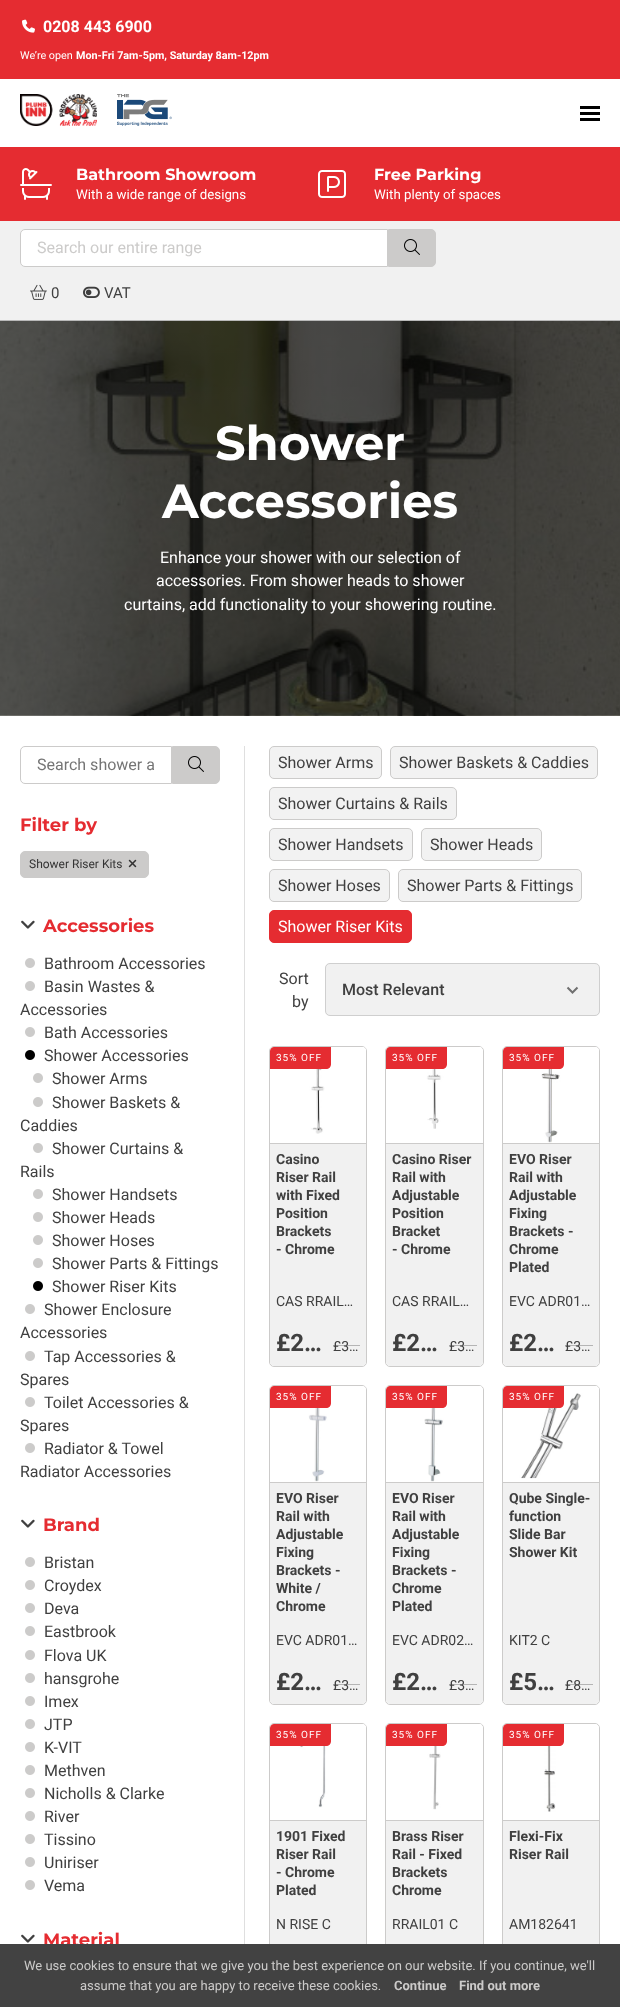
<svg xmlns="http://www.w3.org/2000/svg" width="620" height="2007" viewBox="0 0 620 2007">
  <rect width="100%" height="100%" fill="rgb(255,255,255)"/>
  <rect x="0" y="0" width="620" height="79" fill="rgb(229,44,49)"/>
  <image x="22" y="19" width="13" height="14" href="pic1.png"/>
  <text x="43" y="32" font-family="Roboto" font-size="16" font-weight="bold" fill="rgb(255,255,255)">0208 443 6900</text>
  <text x="20" y="59" font-family="Roboto" font-size="10.8" fill="rgb(255,255,255)">We’re open</text>
  <text x="76" y="59" font-family="Roboto" font-size="10.8" font-weight="bold" fill="rgb(255,255,255)">Mon-Fri 7am-5pm, Saturday 8am-12pm</text>
  <image x="20" y="94" width="77" height="32" href="pic2.png"/>
  <image x="117" y="94" width="55" height="32" href="pic3.png"/>
  <rect x="580" y="112" width="20" height="3" fill="rgb(0,0,0)"/>
  <rect x="580" y="106" width="20" height="3" fill="rgb(0,0,0)"/>
  <rect x="580" y="118" width="20" height="3" fill="rgb(0,0,0)"/>
  <rect x="0" y="147" width="620" height="74" fill="rgb(229,44,49)"/>
  <image x="20" y="168" width="32" height="32" href="pic4.png"/>
  <text x="76" y="180" font-family="Montserrat" font-size="16" font-weight="bold" fill="rgb(255,255,255)">Bathroom Showroom</text>
  <text x="76" y="199" font-family="Roboto" font-size="13.3" fill="rgb(255,255,255)">With a wide range of designs</text>
  <image x="318" y="170" width="28" height="28" href="pic5.png"/>
  <text x="374" y="180" font-family="Montserrat" font-size="16" font-weight="bold" fill="rgb(255,255,255)">Free Parking</text>
  <text x="374" y="199" font-family="Roboto" font-size="13.3" fill="rgb(255,255,255)">With plenty of spaces</text>
  <rect x="0" y="221" width="620" height="99" fill="rgb(241,241,241)"/>
  <rect x="0" y="320" width="620" height="1" fill="rgb(185,185,185)"/>
  <path d="M25 229.5H387.5V266.5H25C22.5 266.5 20.5 264.5 20.5 262V234C20.5 231.5 22.5 229.5 25 229.5Z" fill="rgb(255,255,255)" stroke="rgb(204,203,202)"/>
  <text x="37" y="253" font-family="Roboto" font-size="16" fill="rgb(204,203,202)">Search our entire range</text>
  <path d="M388.5 229.5H431C433.5 229.5 435.5 231.5 435.5 234V262C435.5 264.5 433.5 266.5 431 266.5H388.5Z" fill="rgb(204,203,202)" stroke="rgb(204,203,202)"/>
  <image x="404" y="239" width="16" height="16" href="pic6.png"/>
  <image x="30" y="284" width="17" height="16" href="pic7.png"/>
  <text x="51" y="298" font-family="Roboto" font-size="15" fill="rgb(64,64,64)">0</text>
  <image x="83" y="286" width="17" height="12" href="pic8.png"/>
  <text x="104" y="298" font-family="Roboto" font-size="15" fill="rgb(64,64,64)">VAT</text>
  <image x="0" y="321" width="620" height="395" href="pic9.png"/>
  <g font-family="Montserrat" font-size="48" font-weight="bold" fill="rgb(255,255,255)">
    <text x="215" y="460">Shower</text>
    <text x="162" y="518">Accessories</text>
  </g>
  <g font-family="Roboto" font-size="16" fill="rgb(255,255,255)">
    <text x="160" y="563">Enhance your shower with our selection of</text>
    <text x="156" y="586">accessories. From shower heads to shower</text>
    <text x="124" y="610">curtains, add functionality to your showering routine.</text>
  </g>
  <path d="M25 746.5H171.5V783.5H25C22.5 783.5 20.5 781.5 20.5 779V751C20.5 748.5 22.5 746.5 25 746.5Z" fill="none" stroke="rgb(204,203,202)"/>
  <text x="37" y="770" font-family="Roboto" font-size="16" fill="rgb(117,117,117)">Search shower a</text>
  <path d="M172.5 746.5H215C217.5 746.5 219.5 748.5 219.5 751V779C219.5 781.5 217.5 783.5 215 783.5H172.5Z" fill="rgb(204,203,202)" stroke="rgb(204,203,202)"/>
  <image x="188" y="756" width="16" height="16" href="pic6.png"/>
  <text x="20" y="831" font-family="Montserrat" font-size="18" font-weight="bold" fill="rgb(229,44,49)">Filter by</text>
  <rect x="20.5" y="851.5" width="128" height="26" rx="4.5" fill="rgb(204,203,202)" stroke="rgb(204,203,202)"/>
  <text x="29" y="868" font-family="Roboto" font-size="12" fill="rgb(51,51,51)">Shower Riser Kits</text>
  <image x="128" y="859" width="9" height="9" href="pic10.png"/>
  <image x="21" y="920" width="14" height="9" href="pic11.png"/>
  <text x="43" y="932" font-family="Montserrat" font-size="18" font-weight="bold" fill="rgb(229,44,49)">Accessories</text>
  <image x="25" y="958" width="10" height="10" href="pic12.png"/>
  <text x="44" y="969" font-family="Roboto" font-size="16" fill="rgb(64,64,64)">Bathroom Accessories</text>
  <image x="25" y="981" width="10" height="10" href="pic12.png"/>
  <g font-family="Roboto" font-size="16" fill="rgb(64,64,64)">
    <text x="44" y="992">Basin Wastes &amp;</text>
    <text x="20" y="1015">Accessories</text>
  </g>
  <image x="25" y="1027" width="10" height="10" href="pic12.png"/>
  <text x="44" y="1038" font-family="Roboto" font-size="16" fill="rgb(64,64,64)">Bath Accessories</text>
  <image x="25" y="1050" width="10" height="10" href="pic13.png"/>
  <text x="44" y="1061" font-family="Roboto" font-size="16" fill="rgb(64,64,64)">Shower Accessories</text>
  <image x="33" y="1073" width="10" height="10" href="pic12.png"/>
  <text x="52" y="1084" font-family="Roboto" font-size="16" fill="rgb(64,64,64)">Shower Arms</text>
  <image x="33" y="1097" width="10" height="10" href="pic12.png"/>
  <g font-family="Roboto" font-size="16" fill="rgb(64,64,64)">
    <text x="52" y="1108">Shower Baskets &amp;</text>
    <text x="20" y="1131">Caddies</text>
  </g>
  <image x="33" y="1143" width="10" height="10" href="pic12.png"/>
  <g font-family="Roboto" font-size="16" fill="rgb(64,64,64)">
    <text x="52" y="1154">Shower Curtains &amp;</text>
    <text x="20" y="1177">Rails</text>
  </g>
  <image x="33" y="1189" width="10" height="10" href="pic12.png"/>
  <text x="52" y="1200" font-family="Roboto" font-size="16" fill="rgb(64,64,64)">Shower Handsets</text>
  <image x="33" y="1212" width="10" height="10" href="pic12.png"/>
  <text x="52" y="1223" font-family="Roboto" font-size="16" fill="rgb(64,64,64)">Shower Heads</text>
  <image x="33" y="1235" width="10" height="10" href="pic12.png"/>
  <text x="52" y="1246" font-family="Roboto" font-size="16" fill="rgb(64,64,64)">Shower Hoses</text>
  <image x="33" y="1258" width="10" height="10" href="pic12.png"/>
  <text x="52" y="1269" font-family="Roboto" font-size="16" fill="rgb(64,64,64)">Shower Parts &amp; Fittings</text>
  <image x="33" y="1281" width="10" height="10" href="pic13.png"/>
  <text x="52" y="1292" font-family="Roboto" font-size="16" fill="rgb(64,64,64)">Shower Riser Kits</text>
  <image x="25" y="1304" width="10" height="10" href="pic12.png"/>
  <g font-family="Roboto" font-size="16" fill="rgb(64,64,64)">
    <text x="44" y="1315">Shower Enclosure</text>
    <text x="20" y="1338">Accessories</text>
  </g>
  <image x="25" y="1351" width="10" height="10" href="pic12.png"/>
  <g font-family="Roboto" font-size="16" fill="rgb(64,64,64)">
    <text x="44" y="1362">Tap Accessories &amp;</text>
    <text x="20" y="1385">Spares</text>
  </g>
  <image x="25" y="1397" width="10" height="10" href="pic12.png"/>
  <g font-family="Roboto" font-size="16" fill="rgb(64,64,64)">
    <text x="44" y="1408">Toilet Accessories &amp;</text>
    <text x="20" y="1431">Spares</text>
  </g>
  <image x="25" y="1443" width="10" height="10" href="pic12.png"/>
  <g font-family="Roboto" font-size="16" fill="rgb(64,64,64)">
    <text x="44" y="1454">Radiator &amp; Towel</text>
    <text x="20" y="1477">Radiator Accessories</text>
  </g>
  <image x="21" y="1519" width="14" height="9" href="pic11.png"/>
  <text x="43" y="1531" font-family="Montserrat" font-size="18" font-weight="bold" fill="rgb(229,44,49)">Brand</text>
  <image x="25" y="1557" width="10" height="10" href="pic12.png"/>
  <text x="44" y="1568" font-family="Roboto" font-size="16" fill="rgb(64,64,64)">Bristan</text>
  <image x="25" y="1580" width="10" height="10" href="pic12.png"/>
  <text x="44" y="1591" font-family="Roboto" font-size="16" fill="rgb(64,64,64)">Croydex</text>
  <image x="25" y="1603" width="10" height="10" href="pic12.png"/>
  <text x="44" y="1614" font-family="Roboto" font-size="16" fill="rgb(64,64,64)">Deva</text>
  <image x="25" y="1626" width="10" height="10" href="pic12.png"/>
  <text x="44" y="1637" font-family="Roboto" font-size="16" fill="rgb(64,64,64)">Eastbrook</text>
  <image x="25" y="1650" width="10" height="10" href="pic12.png"/>
  <text x="44" y="1661" font-family="Roboto" font-size="16" fill="rgb(64,64,64)">Flova UK</text>
  <image x="25" y="1673" width="10" height="10" href="pic12.png"/>
  <text x="44" y="1684" font-family="Roboto" font-size="16" fill="rgb(64,64,64)">hansgrohe</text>
  <image x="25" y="1696" width="10" height="10" href="pic12.png"/>
  <text x="44" y="1707" font-family="Roboto" font-size="16" fill="rgb(64,64,64)">Imex</text>
  <image x="25" y="1719" width="10" height="10" href="pic12.png"/>
  <text x="44" y="1730" font-family="Roboto" font-size="16" fill="rgb(64,64,64)">JTP</text>
  <image x="25" y="1742" width="10" height="10" href="pic12.png"/>
  <text x="44" y="1753" font-family="Roboto" font-size="16" fill="rgb(64,64,64)">K-VIT</text>
  <image x="25" y="1765" width="10" height="10" href="pic12.png"/>
  <text x="44" y="1776" font-family="Roboto" font-size="16" fill="rgb(64,64,64)">Methven</text>
  <image x="25" y="1788" width="10" height="10" href="pic12.png"/>
  <text x="44" y="1799" font-family="Roboto" font-size="16" fill="rgb(64,64,64)">Nicholls &amp; Clarke</text>
  <image x="25" y="1811" width="10" height="10" href="pic12.png"/>
  <text x="44" y="1822" font-family="Roboto" font-size="16" fill="rgb(64,64,64)">River</text>
  <image x="25" y="1834" width="10" height="10" href="pic12.png"/>
  <text x="44" y="1845" font-family="Roboto" font-size="16" fill="rgb(64,64,64)">Tissino</text>
  <image x="25" y="1857" width="10" height="10" href="pic12.png"/>
  <text x="44" y="1868" font-family="Roboto" font-size="16" fill="rgb(64,64,64)">Uniriser</text>
  <image x="25" y="1880" width="10" height="10" href="pic12.png"/>
  <text x="44" y="1891" font-family="Roboto" font-size="16" fill="rgb(64,64,64)">Vema</text>
  <image x="21" y="1934" width="14" height="9" href="pic11.png"/>
  <text x="43" y="1946" font-family="Montserrat" font-size="18" font-weight="bold" fill="rgb(229,44,49)">Material</text>
  <rect x="244" y="746" width="1" height="1198" fill="rgb(223,223,223)"/>
  <rect x="269.5" y="746.5" width="112" height="32" rx="4.5" fill="rgb(242,242,242)" stroke="rgb(204,203,202)"/>
  <text x="278" y="768" font-family="Roboto" font-size="16" fill="rgb(64,64,64)">Shower Arms</text>
  <rect x="390.5" y="746.5" width="207" height="32" rx="4.5" fill="rgb(242,242,242)" stroke="rgb(204,203,202)"/>
  <text x="399" y="768" font-family="Roboto" font-size="16" fill="rgb(64,64,64)">Shower Baskets &amp; Caddies</text>
  <rect x="269.5" y="787.5" width="187" height="32" rx="4.5" fill="rgb(242,242,242)" stroke="rgb(204,203,202)"/>
  <text x="278" y="809" font-family="Roboto" font-size="16" fill="rgb(64,64,64)">Shower Curtains &amp; Rails</text>
  <rect x="269.5" y="828.5" width="143" height="32" rx="4.5" fill="rgb(242,242,242)" stroke="rgb(204,203,202)"/>
  <text x="278" y="850" font-family="Roboto" font-size="16" fill="rgb(64,64,64)">Shower Handsets</text>
  <rect x="421.5" y="828.5" width="120" height="32" rx="4.5" fill="rgb(242,242,242)" stroke="rgb(204,203,202)"/>
  <text x="430" y="850" font-family="Roboto" font-size="16" fill="rgb(64,64,64)">Shower Heads</text>
  <rect x="269.5" y="869.5" width="120" height="32" rx="4.5" fill="rgb(242,242,242)" stroke="rgb(204,203,202)"/>
  <text x="278" y="891" font-family="Roboto" font-size="16" fill="rgb(64,64,64)">Shower Hoses</text>
  <rect x="398.5" y="869.5" width="183" height="32" rx="4.5" fill="rgb(242,242,242)" stroke="rgb(204,203,202)"/>
  <text x="407" y="891" font-family="Roboto" font-size="16" fill="rgb(64,64,64)">Shower Parts &amp; Fittings</text>
  <rect x="269.5" y="910.5" width="142" height="32" rx="4.5" fill="rgb(229,44,49)" stroke="rgb(229,44,49)"/>
  <text x="278" y="932" font-family="Roboto" font-size="16" fill="rgb(255,255,255)">Shower Riser Kits</text>
  <g font-family="Roboto" font-size="16" fill="rgb(64,64,64)">
    <text x="279" y="984">Sort</text>
    <text x="292" y="1007">by</text>
  </g>
  <rect x="325" y="963" width="275" height="53" rx="5" fill="rgb(241,241,241)"/>
  <path d="M567.5 987.5L572.5 992.5L577.5 987.5" fill="none" stroke="rgb(112,112,112)" stroke-width="2"/>
  <rect x="325.5" y="963.5" width="274" height="52" rx="4.5" fill="none" stroke="rgb(207,207,207)"/>
  <text x="342" y="995" font-family="Roboto" font-size="16" font-weight="500" fill="rgb(64,64,64)">Most Relevant</text>
  <rect x="269.5" y="1046.5" width="97" height="320" rx="4.5" fill="none" stroke="rgb(204,203,202)"/>
  <path d="M274 1047H362C364 1047 366 1049 366 1051V1143H270V1051C270 1049 272 1047 274 1047Z" fill="rgb(255,255,255)"/>
  <image x="270" y="1047" width="96" height="87" href="pic14.png"/>
  <path d="M274 1047H331V1064C331 1067 329 1069 326 1069H270V1051C270 1049 272 1047 274 1047Z" fill="rgb(229,44,49)"/>
  <text x="276" y="1061" font-family="Roboto" font-size="10" letter-spacing="1" fill="rgb(255,255,255)">35% OFF</text>
  <path d="M270 1143H366V1362C366 1364 364 1366 362 1366H274C272 1366 270 1364 270 1362Z" fill="rgb(241,241,241)"/>
  <rect x="270" y="1143" width="96" height="1" fill="rgb(204,203,202)"/>
  <g font-family="Roboto" font-size="14" font-weight="bold" fill="rgb(64,64,64)">
    <text>
      <tspan x="276" y="1164">Casino</tspan>
      <tspan x="276" y="1182">Riser Rail</tspan>
      <tspan x="276" y="1200">with Fixed</tspan>
      <tspan x="276" y="1218">Position</tspan>
      <tspan x="276" y="1236">Brackets</tspan>
      <tspan x="276" y="1254">- Chrome</tspan>
    </text>
  </g>
  <text x="276" y="1306" font-family="Roboto" font-size="14" fill="rgb(64,64,64)">CAS RRAIL…</text>
  <text x="276" y="1351" font-family="Roboto" font-size="24" font-weight="bold" fill="rgb(64,64,64)">£2…</text>
  <rect x="333" y="1345" width="27" height="1" fill="rgb(181,181,181)"/>
  <text x="333" y="1351" font-family="Roboto" font-size="14" fill="rgb(64,64,64)">£3…</text>
  <rect x="385.5" y="1046.5" width="98" height="320" rx="4.5" fill="none" stroke="rgb(204,203,202)"/>
  <path d="M390 1047H479C481 1047 483 1049 483 1051V1143H386V1051C386 1049 388 1047 390 1047Z" fill="rgb(255,255,255)"/>
  <image x="386" y="1047" width="96" height="82" href="pic15.png"/>
  <path d="M390 1047H447V1064C447 1067 445 1069 442 1069H386V1051C386 1049 388 1047 390 1047Z" fill="rgb(229,44,49)"/>
  <text x="392" y="1061" font-family="Roboto" font-size="10" letter-spacing="1" fill="rgb(255,255,255)">35% OFF</text>
  <path d="M386 1143H483V1362C483 1364 481 1366 479 1366H390C388 1366 386 1364 386 1362Z" fill="rgb(241,241,241)"/>
  <rect x="386" y="1143" width="97" height="1" fill="rgb(204,203,202)"/>
  <g font-family="Roboto" font-size="14" font-weight="bold" fill="rgb(64,64,64)">
    <text>
      <tspan x="392" y="1164">Casino Riser</tspan>
      <tspan x="392" y="1182">Rail with</tspan>
      <tspan x="392" y="1200">Adjustable</tspan>
      <tspan x="392" y="1218">Position</tspan>
      <tspan x="392" y="1236">Bracket</tspan>
      <tspan x="392" y="1254">- Chrome</tspan>
    </text>
  </g>
  <text x="392" y="1306" font-family="Roboto" font-size="14" fill="rgb(64,64,64)">CAS RRAIL…</text>
  <text x="392" y="1351" font-family="Roboto" font-size="24" font-weight="bold" fill="rgb(64,64,64)">£2…</text>
  <rect x="449" y="1345" width="28" height="1" fill="rgb(181,181,181)"/>
  <text x="449" y="1351" font-family="Roboto" font-size="14" fill="rgb(64,64,64)">£3…</text>
  <rect x="502.5" y="1046.5" width="97" height="320" rx="4.5" fill="none" stroke="rgb(204,203,202)"/>
  <image x="503" y="1047" width="96" height="96" href="pic16.png"/>
  <path d="M507 1047H564V1064C564 1067 562 1069 559 1069H503V1051C503 1049 505 1047 507 1047Z" fill="rgb(229,44,49)"/>
  <text x="509" y="1061" font-family="Roboto" font-size="10" letter-spacing="1" fill="rgb(255,255,255)">35% OFF</text>
  <path d="M503 1143H599V1362C599 1364 597 1366 595 1366H507C505 1366 503 1364 503 1362Z" fill="rgb(241,241,241)"/>
  <rect x="503" y="1143" width="96" height="1" fill="rgb(204,203,202)"/>
  <g font-family="Roboto" font-size="14" font-weight="bold" fill="rgb(64,64,64)">
    <text>
      <tspan x="509" y="1164">EVO Riser</tspan>
      <tspan x="509" y="1182">Rail with</tspan>
      <tspan x="509" y="1200">Adjustable</tspan>
      <tspan x="509" y="1218">Fixing</tspan>
      <tspan x="509" y="1236">Brackets -</tspan>
      <tspan x="509" y="1254">Chrome</tspan>
      <tspan x="509" y="1272">Plated</tspan>
    </text>
  </g>
  <text x="509" y="1306" font-family="Roboto" font-size="14" fill="rgb(64,64,64)">EVC ADR01…</text>
  <text x="509" y="1351" font-family="Roboto" font-size="24" font-weight="bold" fill="rgb(64,64,64)">£2…</text>
  <rect x="565" y="1345" width="28" height="1" fill="rgb(181,181,181)"/>
  <text x="565" y="1351" font-family="Roboto" font-size="14" fill="rgb(64,64,64)">£3…</text>
  <rect x="269.5" y="1385.5" width="97" height="319" rx="4.5" fill="none" stroke="rgb(204,203,202)"/>
  <image x="270" y="1386" width="96" height="96" href="pic17.png"/>
  <path d="M274 1386H331V1403C331 1406 329 1408 326 1408H270V1390C270 1388 272 1386 274 1386Z" fill="rgb(229,44,49)"/>
  <text x="276" y="1400" font-family="Roboto" font-size="10" letter-spacing="1" fill="rgb(255,255,255)">35% OFF</text>
  <path d="M270 1482H366V1700C366 1702 364 1704 362 1704H274C272 1704 270 1702 270 1700Z" fill="rgb(241,241,241)"/>
  <rect x="270" y="1482" width="96" height="1" fill="rgb(204,203,202)"/>
  <g font-family="Roboto" font-size="14" font-weight="bold" fill="rgb(64,64,64)">
    <text>
      <tspan x="276" y="1503">EVO Riser</tspan>
      <tspan x="276" y="1521">Rail with</tspan>
      <tspan x="276" y="1539">Adjustable</tspan>
      <tspan x="276" y="1557">Fixing</tspan>
      <tspan x="276" y="1575">Brackets -</tspan>
      <tspan x="276" y="1593">White /</tspan>
      <tspan x="276" y="1611">Chrome</tspan>
    </text>
  </g>
  <text x="276" y="1645" font-family="Roboto" font-size="14" fill="rgb(64,64,64)">EVC ADR01…</text>
  <text x="276" y="1690" font-family="Roboto" font-size="24" font-weight="bold" fill="rgb(64,64,64)">£2…</text>
  <rect x="333" y="1684" width="27" height="1" fill="rgb(181,181,181)"/>
  <text x="333" y="1690" font-family="Roboto" font-size="14" fill="rgb(64,64,64)">£3…</text>
  <rect x="385.5" y="1385.5" width="98" height="319" rx="4.5" fill="none" stroke="rgb(204,203,202)"/>
  <path d="M390 1386H479C481 1386 483 1388 483 1390V1482H386V1390C386 1388 388 1386 390 1386Z" fill="rgb(255,255,255)"/>
  <image x="386" y="1386" width="96" height="96" href="pic18.png"/>
  <path d="M390 1386H447V1403C447 1406 445 1408 442 1408H386V1390C386 1388 388 1386 390 1386Z" fill="rgb(229,44,49)"/>
  <text x="392" y="1400" font-family="Roboto" font-size="10" letter-spacing="1" fill="rgb(255,255,255)">35% OFF</text>
  <path d="M386 1482H483V1700C483 1702 481 1704 479 1704H390C388 1704 386 1702 386 1700Z" fill="rgb(241,241,241)"/>
  <rect x="386" y="1482" width="97" height="1" fill="rgb(204,203,202)"/>
  <g font-family="Roboto" font-size="14" font-weight="bold" fill="rgb(64,64,64)">
    <text>
      <tspan x="392" y="1503">EVO Riser</tspan>
      <tspan x="392" y="1521">Rail with</tspan>
      <tspan x="392" y="1539">Adjustable</tspan>
      <tspan x="392" y="1557">Fixing</tspan>
      <tspan x="392" y="1575">Brackets -</tspan>
      <tspan x="392" y="1593">Chrome</tspan>
      <tspan x="392" y="1611">Plated</tspan>
    </text>
  </g>
  <text x="392" y="1645" font-family="Roboto" font-size="14" fill="rgb(64,64,64)">EVC ADR02…</text>
  <text x="392" y="1690" font-family="Roboto" font-size="24" font-weight="bold" fill="rgb(64,64,64)">£2…</text>
  <rect x="449" y="1684" width="28" height="1" fill="rgb(181,181,181)"/>
  <text x="449" y="1690" font-family="Roboto" font-size="14" fill="rgb(64,64,64)">£3…</text>
  <rect x="502.5" y="1385.5" width="97" height="319" rx="4.5" fill="none" stroke="rgb(204,203,202)"/>
  <path d="M507 1386H595C597 1386 599 1388 599 1390V1482H503V1390C503 1388 505 1386 507 1386Z" fill="rgb(255,255,255)"/>
  <image x="503" y="1386" width="96" height="93" href="pic19.png"/>
  <path d="M507 1386H564V1403C564 1406 562 1408 559 1408H503V1390C503 1388 505 1386 507 1386Z" fill="rgb(229,44,49)"/>
  <text x="509" y="1400" font-family="Roboto" font-size="10" letter-spacing="1" fill="rgb(255,255,255)">35% OFF</text>
  <path d="M503 1482H599V1700C599 1702 597 1704 595 1704H507C505 1704 503 1702 503 1700Z" fill="rgb(241,241,241)"/>
  <rect x="503" y="1482" width="96" height="1" fill="rgb(204,203,202)"/>
  <g font-family="Roboto" font-size="14" font-weight="bold" fill="rgb(64,64,64)">
    <text>
      <tspan x="509" y="1503">Qube Single-</tspan>
      <tspan x="509" y="1521">function</tspan>
      <tspan x="509" y="1539">Slide Bar</tspan>
      <tspan x="509" y="1557">Shower Kit</tspan>
    </text>
  </g>
  <text x="509" y="1645" font-family="Roboto" font-size="14" fill="rgb(64,64,64)">KIT2 C</text>
  <text x="509" y="1690" font-family="Roboto" font-size="24" font-weight="bold" fill="rgb(64,64,64)">£5…</text>
  <rect x="565" y="1684" width="28" height="1" fill="rgb(181,181,181)"/>
  <text x="565" y="1690" font-family="Roboto" font-size="14" fill="rgb(64,64,64)">£8…</text>
  <rect x="269.5" y="1723.5" width="97" height="266" rx="4.5" fill="none" stroke="rgb(204,203,202)"/>
  <path d="M274 1724H362C364 1724 366 1726 366 1728V1820H270V1728C270 1726 272 1724 274 1724Z" fill="rgb(255,255,255)"/>
  <image x="270" y="1724" width="96" height="84" href="pic20.png"/>
  <path d="M274 1724H331V1741C331 1744 329 1746 326 1746H270V1728C270 1726 272 1724 274 1724Z" fill="rgb(229,44,49)"/>
  <text x="276" y="1738" font-family="Roboto" font-size="10" letter-spacing="1" fill="rgb(255,255,255)">35% OFF</text>
  <rect x="270" y="1821" width="96" height="123" fill="rgb(241,241,241)"/>
  <rect x="270" y="1820" width="96" height="1" fill="rgb(204,203,202)"/>
  <g font-family="Roboto" font-size="14" font-weight="bold" fill="rgb(64,64,64)">
    <text>
      <tspan x="276" y="1841">1901 Fixed</tspan>
      <tspan x="276" y="1859">Riser Rail</tspan>
      <tspan x="276" y="1877">- Chrome</tspan>
      <tspan x="276" y="1895">Plated</tspan>
    </text>
  </g>
  <text x="276" y="1929" font-family="Roboto" font-size="14" fill="rgb(64,64,64)">N RISE C</text>
  <rect x="385.5" y="1723.5" width="98" height="266" rx="4.5" fill="none" stroke="rgb(204,203,202)"/>
  <path d="M390 1724H479C481 1724 483 1726 483 1728V1820H386V1728C386 1726 388 1724 390 1724Z" fill="rgb(255,255,255)"/>
  <image x="386" y="1724" width="96" height="86" href="pic21.png"/>
  <path d="M390 1724H447V1741C447 1744 445 1746 442 1746H386V1728C386 1726 388 1724 390 1724Z" fill="rgb(229,44,49)"/>
  <text x="392" y="1738" font-family="Roboto" font-size="10" letter-spacing="1" fill="rgb(255,255,255)">35% OFF</text>
  <rect x="386" y="1821" width="97" height="123" fill="rgb(241,241,241)"/>
  <rect x="386" y="1820" width="97" height="1" fill="rgb(204,203,202)"/>
  <g font-family="Roboto" font-size="14" font-weight="bold" fill="rgb(64,64,64)">
    <text>
      <tspan x="392" y="1841">Brass Riser</tspan>
      <tspan x="392" y="1859">Rail - Fixed</tspan>
      <tspan x="392" y="1877">Brackets</tspan>
      <tspan x="392" y="1895">Chrome</tspan>
    </text>
  </g>
  <text x="392" y="1929" font-family="Roboto" font-size="14" fill="rgb(64,64,64)">RRAIL01 C</text>
  <rect x="502.5" y="1723.5" width="97" height="266" rx="4.5" fill="none" stroke="rgb(204,203,202)"/>
  <path d="M507 1724H595C597 1724 599 1726 599 1728V1820H503V1728C503 1726 505 1724 507 1724Z" fill="rgb(255,255,255)"/>
  <path d="M507 1724H564V1741C564 1744 562 1746 559 1746H503V1728C503 1726 505 1724 507 1724Z" fill="rgb(229,44,49)"/>
  <text x="509" y="1738" font-family="Roboto" font-size="10" letter-spacing="1" fill="rgb(255,255,255)">35% OFF</text>
  <image x="544" y="1746" width="12" height="66" href="pic22.png"/>
  <rect x="503" y="1821" width="96" height="123" fill="rgb(241,241,241)"/>
  <rect x="503" y="1820" width="96" height="1" fill="rgb(204,203,202)"/>
  <g font-family="Roboto" font-size="14" font-weight="bold" fill="rgb(64,64,64)">
    <text>
      <tspan x="509" y="1841">Flexi-Fix</tspan>
      <tspan x="509" y="1859">Riser Rail</tspan>
    </text>
  </g>
  <text x="509" y="1929" font-family="Roboto" font-size="14" fill="rgb(64,64,64)">AM182641</text>
  <rect x="0" y="1944" width="620" height="63" fill="rgb(66,66,66)"/>
  <g font-family="Roboto" font-size="13" fill="rgb(204,203,202)">
    <text x="24" y="1970">We use cookies to ensure that we give you the best experience on our website. If you continue, we'll</text>
    <text x="80" y="1990">assume that you are happy to receive these cookies.</text>
  </g>
  <g font-family="Roboto" font-size="13" font-weight="bold" fill="rgb(204,203,202)">
    <text x="394" y="1990">Continue</text>
    <text x="459" y="1990">Find out more</text>
  </g>
</svg>
